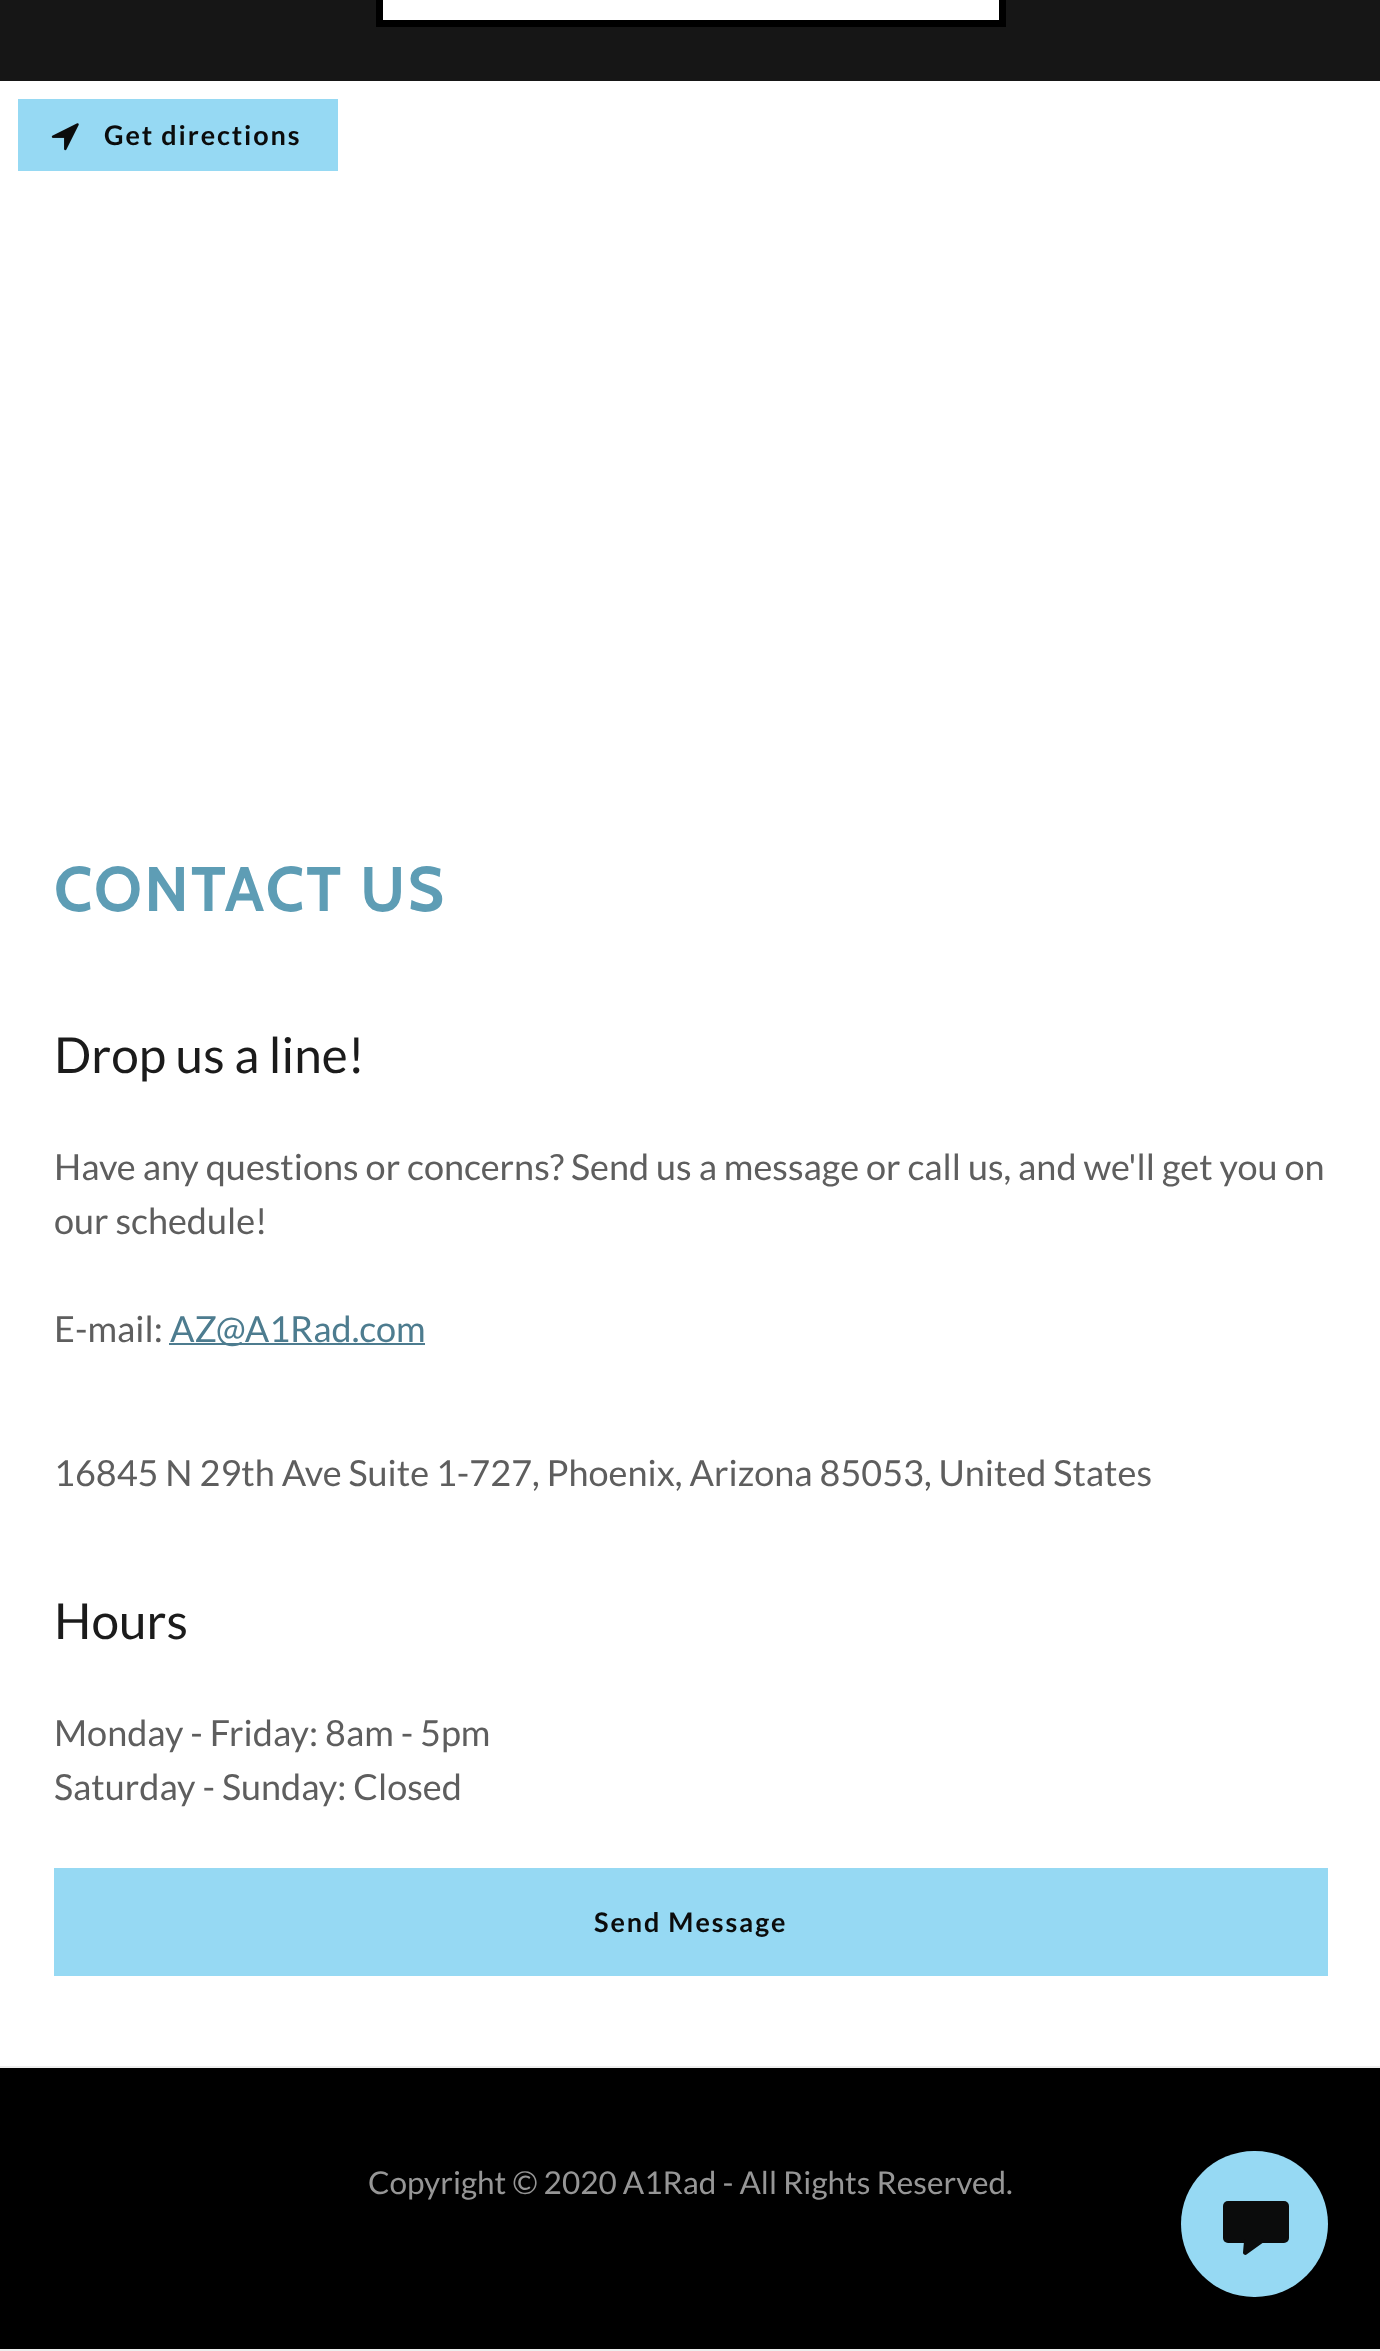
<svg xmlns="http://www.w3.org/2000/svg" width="1380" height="2351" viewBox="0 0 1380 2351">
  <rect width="100%" height="100%" fill="rgb(0,0,0)"/>
  <rect x="0" y="0" width="1380" height="81" fill="rgb(22,22,22)"/>
  <rect x="379.5" y="-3.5" width="623" height="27" fill="rgb(255,255,255)" stroke="rgb(0,0,0)" stroke-width="7"/>
  <rect x="0" y="81" width="1380" height="1985" fill="rgb(255,255,255)"/>
  <rect x="18" y="99" width="320" height="72" fill="rgb(150,217,243)"/>
  <image x="51" y="123" width="28" height="28" href="pic1.png"/>
  <text x="104" y="145" font-family="Lato" font-size="27" font-weight="bold" letter-spacing="1.9" fill="rgb(11,12,12)">Get directions</text>
  <rect x="0" y="2066" width="1380" height="2" fill="rgb(238,238,238)"/>
  <text x="54" y="911" font-family="Cabin" font-size="63" font-weight="bold" letter-spacing="2.25" fill="rgb(94,157,181)">CONTACT US</text>
  <text x="54" y="1073" font-family="Lato" font-size="49.5" fill="rgb(27,27,27)">Drop us a line!</text>
  <g font-family="Lato" font-size="36" fill="rgb(94,94,94)">
    <text>
      <tspan x="54" y="1180">Have any questions or concerns? Send us a message or call us, and we'll get you on</tspan>
      <tspan x="54" y="1234">our schedule!</tspan>
    </text>
    <text x="54" y="1342">E-mail:</text>
  </g>
  <rect x="169" y="1343" width="256" height="2" fill="rgb(77,124,143)"/>
  <text x="170" y="1342" font-family="Lato" font-size="36" fill="rgb(77,124,143)">AZ@A1Rad.com</text>
  <text x="54" y="1486" font-family="Lato" font-size="36" fill="rgb(94,94,94)">16845 N 29th Ave Suite 1-727, Phoenix, Arizona 85053, United States</text>
  <text x="54" y="1639" font-family="Lato" font-size="49.5" fill="rgb(27,27,27)">Hours</text>
  <g font-family="Lato" font-size="36" fill="rgb(94,94,94)">
    <text>
      <tspan x="54" y="1746">Monday - Friday: 8am - 5pm</tspan>
      <tspan x="54" y="1800">Saturday - Sunday: Closed</tspan>
    </text>
  </g>
  <rect x="54" y="1868" width="1274" height="108" fill="rgb(150,217,243)"/>
  <text x="594" y="1932" font-family="Lato" font-size="27" font-weight="bold" letter-spacing="1.9" fill="rgb(11,12,12)">Send Message</text>
  <rect x="0" y="2349" width="1380" height="2" fill="rgb(238,238,238)"/>
  <text x="368" y="2194" font-family="Lato" font-size="31.5" fill="rgb(150,150,150)">Copyright © 2020 A1Rad - All Rights Reserved.</text>
  <rect x="1181" y="2151" width="147" height="146" rx="73" fill="rgb(150,217,243)"/>
  <rect x="1223" y="2201" width="66" height="42" rx="5" fill="rgb(11,12,12)"/>
  <path d="M1243 2252.5L1244 2241C1244 2240 1245 2239 1246 2239H1261C1263.5 2239 1264.5 2242 1262.5 2243L1246.5 2254.5C1246 2255 1245 2255 1244 2254.5C1243.5 2254 1243 2253.5 1243 2252.5Z" fill="rgb(11,12,12)"/>
</svg>
